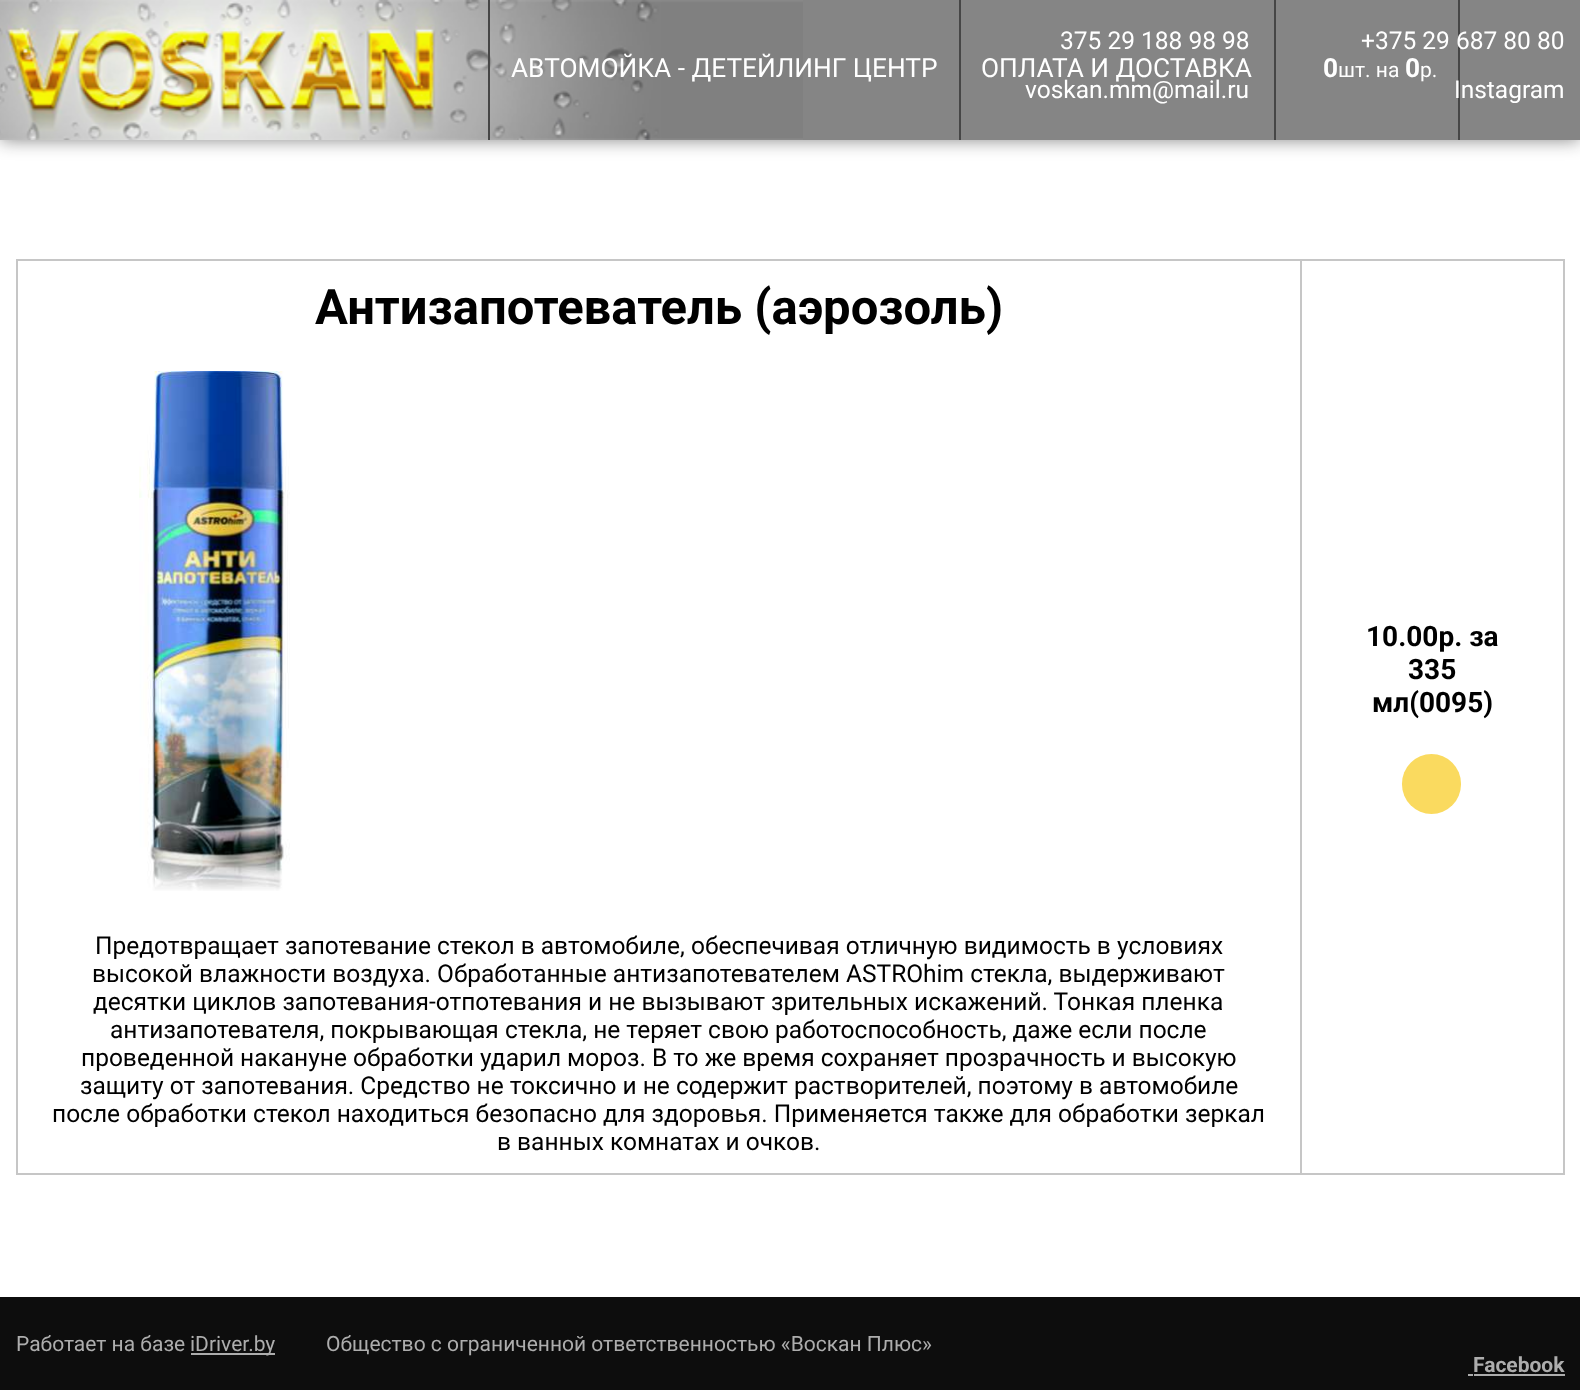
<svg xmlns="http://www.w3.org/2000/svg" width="1580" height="1390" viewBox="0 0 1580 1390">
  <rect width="100%" height="100%" fill="rgb(255,255,255)"/>
  <rect x="0" y="0" width="1580" height="140" fill="rgba(13,13,13,0.5)" filter="blur(9px)"/>
  <rect x="0" y="0" width="1580" height="140" fill="rgb(133,133,133)"/>
  <image x="0" y="0" width="803" height="140" href="pic1.png"/>
  <text x="1060" y="49" font-family="Roboto" font-size="24.5" fill="rgb(255,255,255)">375 29 188 98 98</text>
  <rect x="1458" y="0" width="2" height="140" fill="rgb(70,70,70)"/>
  <g font-family="Roboto" font-size="24.5" fill="rgb(255,255,255)">
    <text x="1361" y="49">+375 29 687 80 80</text>
    <text x="1025" y="98">voskan.mm@mail.ru</text>
    <text x="1454" y="98">Instagram</text>
  </g>
  <rect x="488" y="0" width="2" height="140" fill="rgb(70,70,70)"/>
  <text x="511" y="77" font-family="Roboto" font-size="26.25" fill="rgb(255,255,255)">АВТОМОЙКА - ДЕТЕЙЛИНГ ЦЕНТР</text>
  <rect x="959" y="0" width="2" height="140" fill="rgb(70,70,70)"/>
  <text x="981" y="77" font-family="Roboto" font-size="26.25" fill="rgb(255,255,255)">ОПЛАТА И ДОСТАВКА</text>
  <rect x="1274" y="0" width="2" height="140" fill="rgb(70,70,70)"/>
  <text x="1323" y="77" font-family="Roboto" font-size="26.25" font-weight="bold" fill="rgb(255,255,255)">0</text>
  <text x="1338" y="77" font-family="Roboto" font-size="21" fill="rgb(255,255,255)">шт. на</text>
  <text x="1405" y="77" font-family="Roboto" font-size="26.25" font-weight="bold" fill="rgb(255,255,255)">0</text>
  <text x="1420" y="77" font-family="Roboto" font-size="21" fill="rgb(255,255,255)">р.</text>
  <rect x="16" y="259" width="1549" height="2" fill="rgb(198,198,198)"/>
  <rect x="1563" y="259" width="2" height="915" fill="rgb(198,198,198)"/>
  <rect x="16" y="1173" width="1549" height="2" fill="rgb(198,198,198)"/>
  <rect x="16" y="259" width="2" height="915" fill="rgb(198,198,198)"/>
  <text x="315" y="324" font-family="Roboto" font-size="49" font-weight="bold" fill="rgb(0,0,0)">Антизапотеватель (аэрозоль)</text>
  <image x="139" y="371" width="151" height="520" href="pic2.png"/>
  <g font-family="Roboto" font-size="24.5" fill="rgb(0,0,0)">
    <text x="95" y="954">Предотвращает запотевание стекол в автомобиле, обеспечивая отличную видимость в условиях</text>
    <text x="92" y="982">высокой влажности воздуха. Обработанные антизапотевателем ASTROhim стекла, выдерживают</text>
    <text x="93" y="1010">десятки циклов запотевания-отпотевания и не вызывают зрительных искажений. Тонкая пленка</text>
    <text x="110" y="1038">антизапотевателя, покрывающая стекла, не теряет свою работоспособность, даже если после</text>
    <text x="81" y="1066">проведенной накануне обработки ударил мороз. В то же время сохраняет прозрачность и высокую</text>
    <text x="80" y="1094">защиту от запотевания. Средство не токсично и не содержит растворителей, поэтому в автомобиле</text>
    <text x="52" y="1122">после обработки стекол находиться безопасно для здоровья. Применяется также для обработки зеркал</text>
    <text x="497" y="1150">в ванных комнатах и очков.</text>
  </g>
  <rect x="1300" y="259" width="2" height="915" fill="rgb(198,198,198)"/>
  <g font-family="Roboto" font-size="28" font-weight="bold" fill="rgb(0,0,0)">
    <text x="1366" y="646">10.00р. за</text>
    <text x="1408" y="679">335</text>
    <text x="1372" y="712">мл(0095)</text>
  </g>
  <rect x="1402" y="754" width="59" height="60" rx="29.5" fill="rgb(250,218,95)"/>
  <rect x="0" y="1297" width="1580" height="93" fill="rgb(13,13,13)"/>
  <text x="16" y="1351" font-family="Roboto" font-size="21" fill="rgb(173,173,173)">Работает на базе</text>
  <rect x="191" y="1353" width="84" height="2" fill="rgb(173,173,173)"/>
  <g font-family="Roboto" font-size="21" fill="rgb(173,173,173)">
    <text x="190" y="1351">iDriver.by</text>
    <text x="326" y="1351">Общество с ограниченной ответственностью «Воскан Плюс»</text>
  </g>
  <text x="1473" y="1372" font-family="Roboto" font-size="21" font-weight="bold" fill="rgb(173,173,173)">Facebook</text>
  <rect x="1468" y="1374" width="5" height="2" fill="rgb(173,173,173)"/>
  <rect x="1474" y="1374" width="91" height="2" fill="rgb(173,173,173)"/>
</svg>
